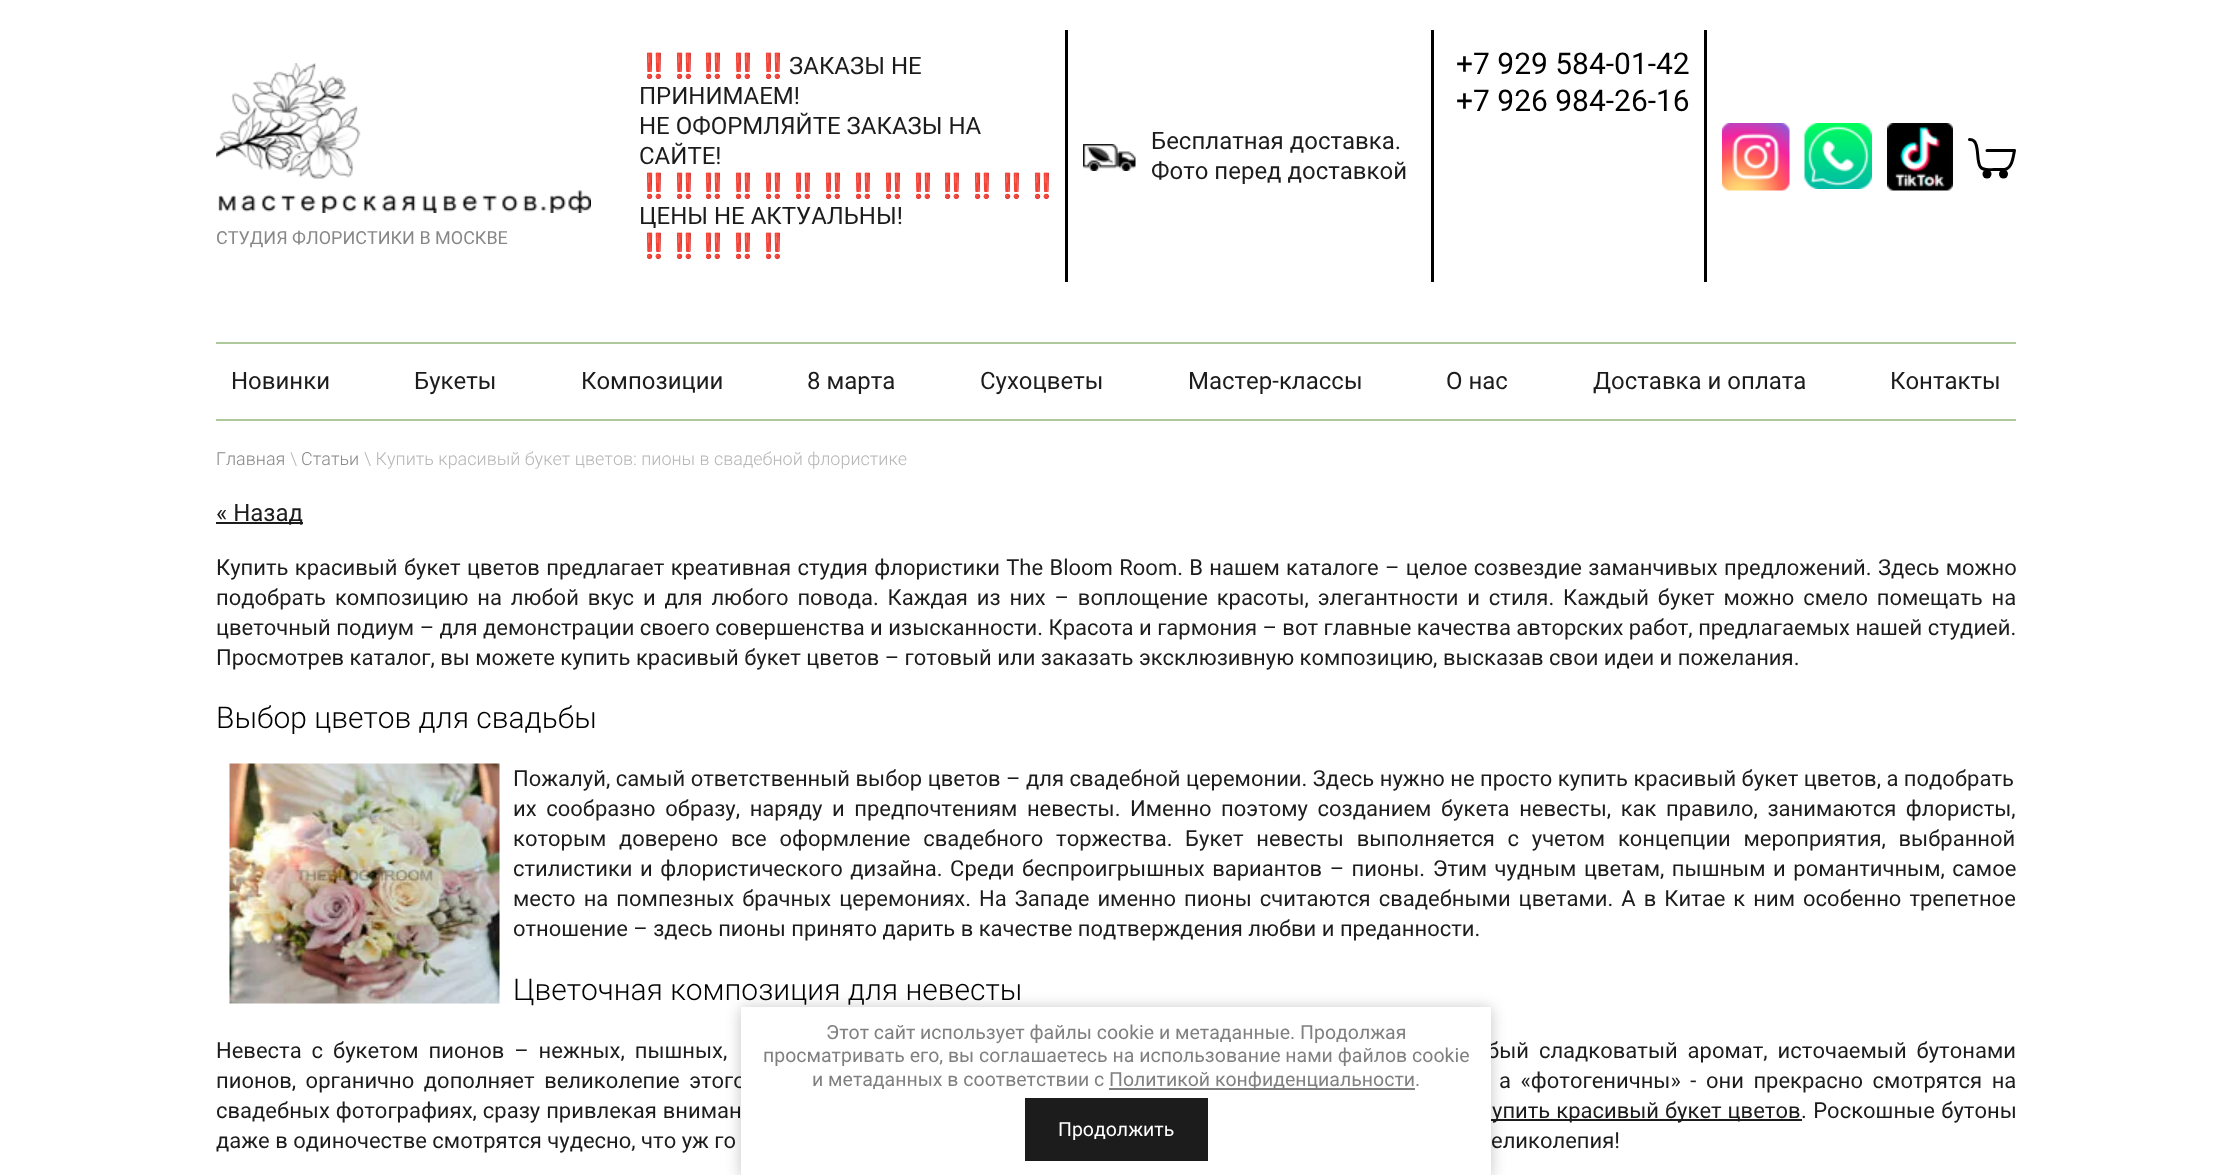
<svg xmlns="http://www.w3.org/2000/svg" width="2231" height="1175" viewBox="0 0 2231 1175">
  <rect width="100%" height="100%" fill="rgb(255,255,255)"/>
  <image x="216" y="63" width="375" height="150" href="pic1.png"/>
  <text x="216" y="244" font-family="roboto" font-size="18" fill="rgb(136,136,136)">СТУДИЯ ФЛОРИСТИКИ В МОСКВЕ</text>
  <rect x="1065" y="30" width="3" height="252" fill="rgb(0,0,0)"/>
  <text x="639" y="74" font-family="Noto Color Emoji" font-size="24" fill="rgb(28,28,28)">‼️‼️‼️‼️‼️</text>
  <g font-family="roboto" font-size="24" fill="rgb(28,28,28)">
    <text x="789" y="74">ЗАКАЗЫ НЕ</text>
    <text>
      <tspan x="639" y="104">ПРИНИМАЕМ!</tspan>
      <tspan x="639" y="134">НЕ ОФОРМЛЯЙТЕ ЗАКАЗЫ НА</tspan>
      <tspan x="639" y="164">САЙТЕ!</tspan>
    </text>
  </g>
  <text x="639" y="194" font-family="Noto Color Emoji" font-size="24" fill="rgb(28,28,28)">‼️‼️‼️‼️‼️‼️‼️‼️‼️‼️‼️‼️‼️‼️</text>
  <text x="639" y="224" font-family="roboto" font-size="24" fill="rgb(28,28,28)">ЦЕНЫ НЕ АКТУАЛЬНЫ!</text>
  <text x="639" y="254" font-family="Noto Color Emoji" font-size="24" fill="rgb(28,28,28)">‼️‼️‼️‼️‼️</text>
  <rect x="1704" y="30" width="3" height="252" fill="rgb(0,0,0)"/>
  <g font-family="roboto" font-size="30" fill="rgb(0,0,0)">
    <text>
      <tspan x="1456" y="74">+7 929 584-01-42</tspan>
      <tspan x="1456" y="111">+7 926 984-26-16</tspan>
    </text>
  </g>
  <rect x="1431" y="30" width="3" height="252" fill="rgb(0,0,0)"/>
  <image x="1083" y="144" width="53" height="27" href="pic2.png"/>
  <g font-family="roboto" font-size="24" fill="rgb(28,28,28)">
    <text>
      <tspan x="1151" y="149">Бесплатная доставка.</tspan>
      <tspan x="1151" y="179">Фото перед доставкой</tspan>
    </text>
  </g>
  <image x="1722" y="123" width="68" height="68" href="pic3.png"/>
  <image x="1804" y="123" width="68" height="66" href="pic4.png"/>
  <image x="1887" y="123" width="66" height="68" href="pic5.png"/>
  <path d="M1969.5 139.5C1971 139.5 1973 140 1974 141C1979.5 145.5 1976 161.5 1980.5 167C1983.5 171 1990 169.5 1994 169.5H2004.5C2012.5 168 2013 157 2014.5 150.5H1987" fill="none" stroke="rgb(0,0,0)" stroke-width="3" stroke-linecap="round" stroke-linejoin="round"/>
  <circle cx="1987" cy="174" r="4.5" fill="rgb(0,0,0)"/>
  <circle cx="2003.5" cy="174" r="4.5" fill="rgb(0,0,0)"/>
  <rect x="216" y="342" width="1800" height="2" fill="rgb(174,202,156)"/>
  <rect x="216" y="419" width="1800" height="2" fill="rgb(174,202,156)"/>
  <g font-family="roboto" font-size="24" fill="rgb(28,28,28)">
    <text x="231" y="389">Новинки</text>
    <text x="414" y="389">Букеты</text>
    <text x="581" y="389">Композиции</text>
    <text x="807" y="389">8 марта</text>
    <text x="980" y="389">Сухоцветы</text>
    <text x="1188" y="389">Мастер-классы</text>
    <text x="1446" y="389">О нас</text>
    <text x="1593" y="389">Доставка и оплата</text>
    <text x="1890" y="389">Контакты</text>
  </g>
  <text x="216" y="465" font-family="Roboto" font-size="18" font-weight="300" fill="rgb(136,136,136)">Главная</text>
  <text x="290" y="465" font-family="Roboto" font-size="18" font-weight="300" fill="rgb(182,182,182)">\</text>
  <text x="301" y="465" font-family="Roboto" font-size="18" font-weight="300" fill="rgb(136,136,136)">Статьи</text>
  <text x="364" y="465" font-family="Roboto" font-size="18" font-weight="300" fill="rgb(182,182,182)">\ Купить красивый букет цветов: пионы в свадебной флористике</text>
  <rect x="216" y="522" width="87" height="2" fill="rgb(28,28,28)"/>
  <text x="216" y="521" font-family="roboto" font-size="24" fill="rgb(28,28,28)">« Назад</text>
  <g font-family="roboto" font-size="22" fill="rgb(28,28,28)">
    <text>
      <tspan x="216" y="575" word-spacing="0.9">Купить красивый букет цветов предлагает креативная студия флористики The Bloom Room. В нашем каталоге – целое созвездие заманчивых предложений. Здесь можно</tspan>
      <tspan x="216" y="605" word-spacing="3.4">подобрать композицию на любой вкус и для любого повода. Каждая из них – воплощение красоты, элегантности и стиля. Каждый букет можно смело помещать на</tspan>
      <tspan x="216" y="635">цветочный подиум – для демонстрации своего совершенства и изысканности. Красота и гармония – вот главные качества авторских работ, предлагаемых нашей студией.</tspan>
      <tspan x="216" y="665">Просмотрев каталог, вы можете купить красивый букет цветов – готовый или заказать эксклюзивную композицию, высказав свои идеи и пожелания.</tspan>
    </text>
  </g>
  <text x="216" y="728" font-family="Roboto" font-size="30" font-weight="300" fill="rgb(0,0,0)">Выбор цветов для свадьбы</text>
  <image x="229" y="763" width="271" height="241" href="pic6.png"/>
  <g font-family="roboto" font-size="22" fill="rgb(28,28,28)">
    <text>
      <tspan x="513" y="786">Пожалуй, самый ответственный выбор цветов – для свадебной церемонии. Здесь нужно не просто купить красивый букет цветов, а подобрать</tspan>
      <tspan x="513" y="816" word-spacing="4.1">их сообразно образу, наряду и предпочтениям невесты. Именно поэтому созданием букета невесты, как правило, занимаются флористы,</tspan>
      <tspan x="513" y="846" word-spacing="7.25">которым доверено все оформление свадебного торжества. Букет невесты выполняется с учетом концепции мероприятия, выбранной</tspan>
      <tspan x="513" y="876" word-spacing="2.1">стилистики и флористического дизайна. Среди беспроигрышных вариантов – пионы. Этим чудным цветам, пышным и романтичным, самое</tspan>
      <tspan x="513" y="906" word-spacing="2.6">место на помпезных брачных церемониях. На Западе именно пионы считаются свадебными цветами. А в Китае к ним особенно трепетное</tspan>
      <tspan x="513" y="936">отношение – здесь пионы принято дарить в качестве подтверждения любви и преданности.</tspan>
    </text>
  </g>
  <text x="513" y="1000" font-family="Roboto" font-size="30" font-weight="300" fill="rgb(0,0,0)">Цветочная композиция для невесты</text>
  <g font-family="roboto" font-size="22" fill="rgb(28,28,28)">
    <text x="216" y="1058" word-spacing="4.5">Невеста с букетом пионов – нежных, пышных,</text>
    <text x="1487" y="1058" word-spacing="4.5">бый сладковатый аромат, источаемый бутонами</text>
    <text x="216" y="1088" word-spacing="4.1">пионов, органично дополняет великолепие этого</text>
    <text x="1499" y="1088" word-spacing="4.1">а «фотогеничны» - они прекрасно смотрятся на</text>
    <text x="216" y="1118" word-spacing="0.5">свадебных фотографиях, сразу привлекая вниман</text>
  </g>
  <rect x="1491" y="1119" width="311" height="2" fill="rgb(28,28,28)"/>
  <g font-family="roboto" font-size="22" fill="rgb(28,28,28)">
    <text x="1492" y="1118" word-spacing="0.5">упить красивый букет цветов</text>
    <text x="1801" y="1118" word-spacing="1">. Роскошные бутоны</text>
    <text x="216" y="1148">даже в одиночестве смотрятся чудесно, что уж го</text>
    <text x="1491" y="1148">еликолепия!</text>
  </g>
  <rect x="741" y="1008" width="750" height="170" fill="rgba(0,0,0,0.23)" filter="blur(7.5px)"/>
  <rect x="741" y="1007" width="750" height="168" fill="rgb(255,255,255)"/>
  <g font-family="roboto" font-size="19.5" fill="rgb(128,128,128)">
    <text x="826" y="1039">Этот сайт использует файлы cookie и метаданные. Продолжая</text>
    <text x="763" y="1062">просматривать его, вы соглашаетесь на использование нами файлов cookie</text>
    <text x="812" y="1086">и метаданных в соответствии с</text>
  </g>
  <rect x="1109" y="1088" width="306" height="2" fill="rgb(128,128,128)"/>
  <text x="1109" y="1086" font-family="roboto" font-size="19.5" fill="rgb(128,128,128)">Политикой конфиденциальности.</text>
  <rect x="1025" y="1098" width="183" height="63" fill="rgb(28,28,28)"/>
  <text x="1058" y="1136" font-family="roboto" font-size="19.5" fill="rgb(255,255,255)">Продолжить</text>
</svg>
